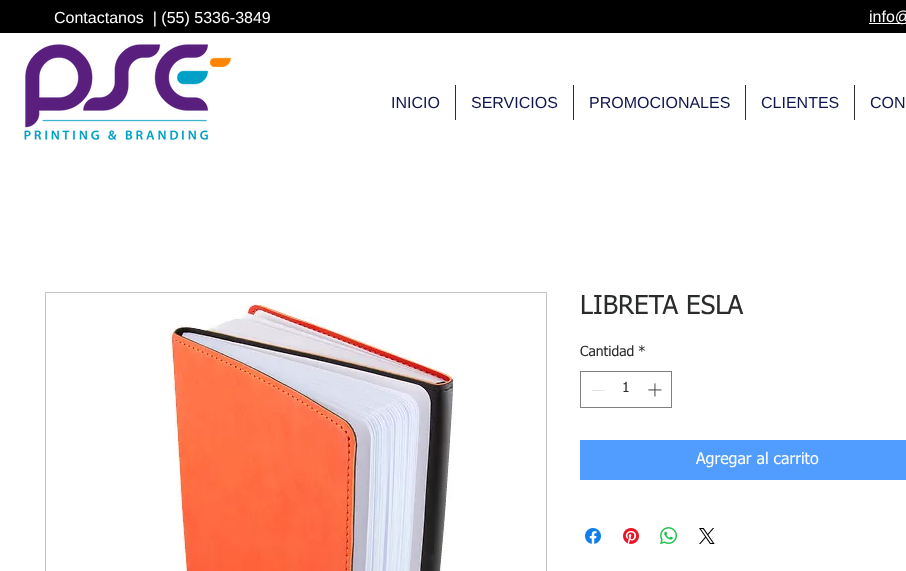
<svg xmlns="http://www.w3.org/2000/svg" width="906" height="571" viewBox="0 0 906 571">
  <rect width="100%" height="100%" fill="rgb(255,255,255)"/>
  <rect x="0" y="0" width="906" height="33" fill="rgb(0,0,0)"/>
  <text x="54" y="23" font-family="Liberation Sans" font-size="16" fill="rgb(255,255,255)" xml:space="preserve">Contactanos  | (55) 5336-3849</text>
  <rect x="869" y="23" width="37" height="1" fill="rgb(255,255,255)"/>
  <text x="869" y="22" font-family="Liberation Sans" font-size="16" fill="rgb(255,255,255)">info@</text>
  <image x="24" y="44" width="207" height="96" href="pic1.png"/>
  <text x="391" y="108" font-family="Liberation Sans" font-size="16" fill="rgb(15,21,77)">INICIO</text>
  <rect x="455" y="85" width="1" height="35" fill="rgb(44,45,46)"/>
  <text x="471" y="108" font-family="Liberation Sans" font-size="16" fill="rgb(15,21,77)">SERVICIOS</text>
  <rect x="573" y="85" width="1" height="35" fill="rgb(44,45,46)"/>
  <text x="589" y="108" font-family="Liberation Sans" font-size="16" fill="rgb(15,21,77)">PROMOCIONALES</text>
  <rect x="745" y="85" width="1" height="35" fill="rgb(44,45,46)"/>
  <text x="761" y="108" font-family="Liberation Sans" font-size="16" fill="rgb(15,21,77)">CLIENTES</text>
  <rect x="854" y="85" width="1" height="35" fill="rgb(44,45,46)"/>
  <text x="870" y="108" font-family="Liberation Sans" font-size="16" fill="rgb(15,21,77)">CON</text>
  <rect x="45.5" y="292.5" width="501" height="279" fill="none" stroke="rgb(197,195,195)"/>
  <image x="166" y="301" width="288" height="270" href="pic2.png"/>
  <text x="580" y="314" font-family="tahoma" font-size="26" fill="rgb(42,43,44)">LIBRETA ESLA</text>
  <g font-family="tahoma" font-size="14" fill="rgb(42,43,44)">
    <text x="580" y="356">Cantidad</text>
    <text x="638" y="356">*</text>
  </g>
  <rect x="580.5" y="371.5" width="91" height="36" fill="none" stroke="rgb(127,128,128)"/>
  <rect x="592" y="390" width="13" height="1" fill="rgb(227,227,227)"/>
  <text x="622" y="392" font-family="tahoma" font-size="14" fill="rgb(42,43,44)">1</text>
  <image x="648" y="383" width="14" height="14" href="pic3.png"/>
  <rect x="580" y="440" width="326" height="40" fill="rgb(81,156,255)"/>
  <text x="696" y="464" font-family="tahoma" font-size="16" fill="rgb(255,255,255)">Agregar al carrito</text>
  <image x="585" y="528" width="16" height="16" href="pic4.png"/>
  <image x="623" y="528" width="16" height="16" href="pic5.png"/>
  <image x="660" y="527" width="17" height="17" href="pic6.png"/>
  <image x="699" y="528" width="16" height="16" href="pic7.png"/>
</svg>
